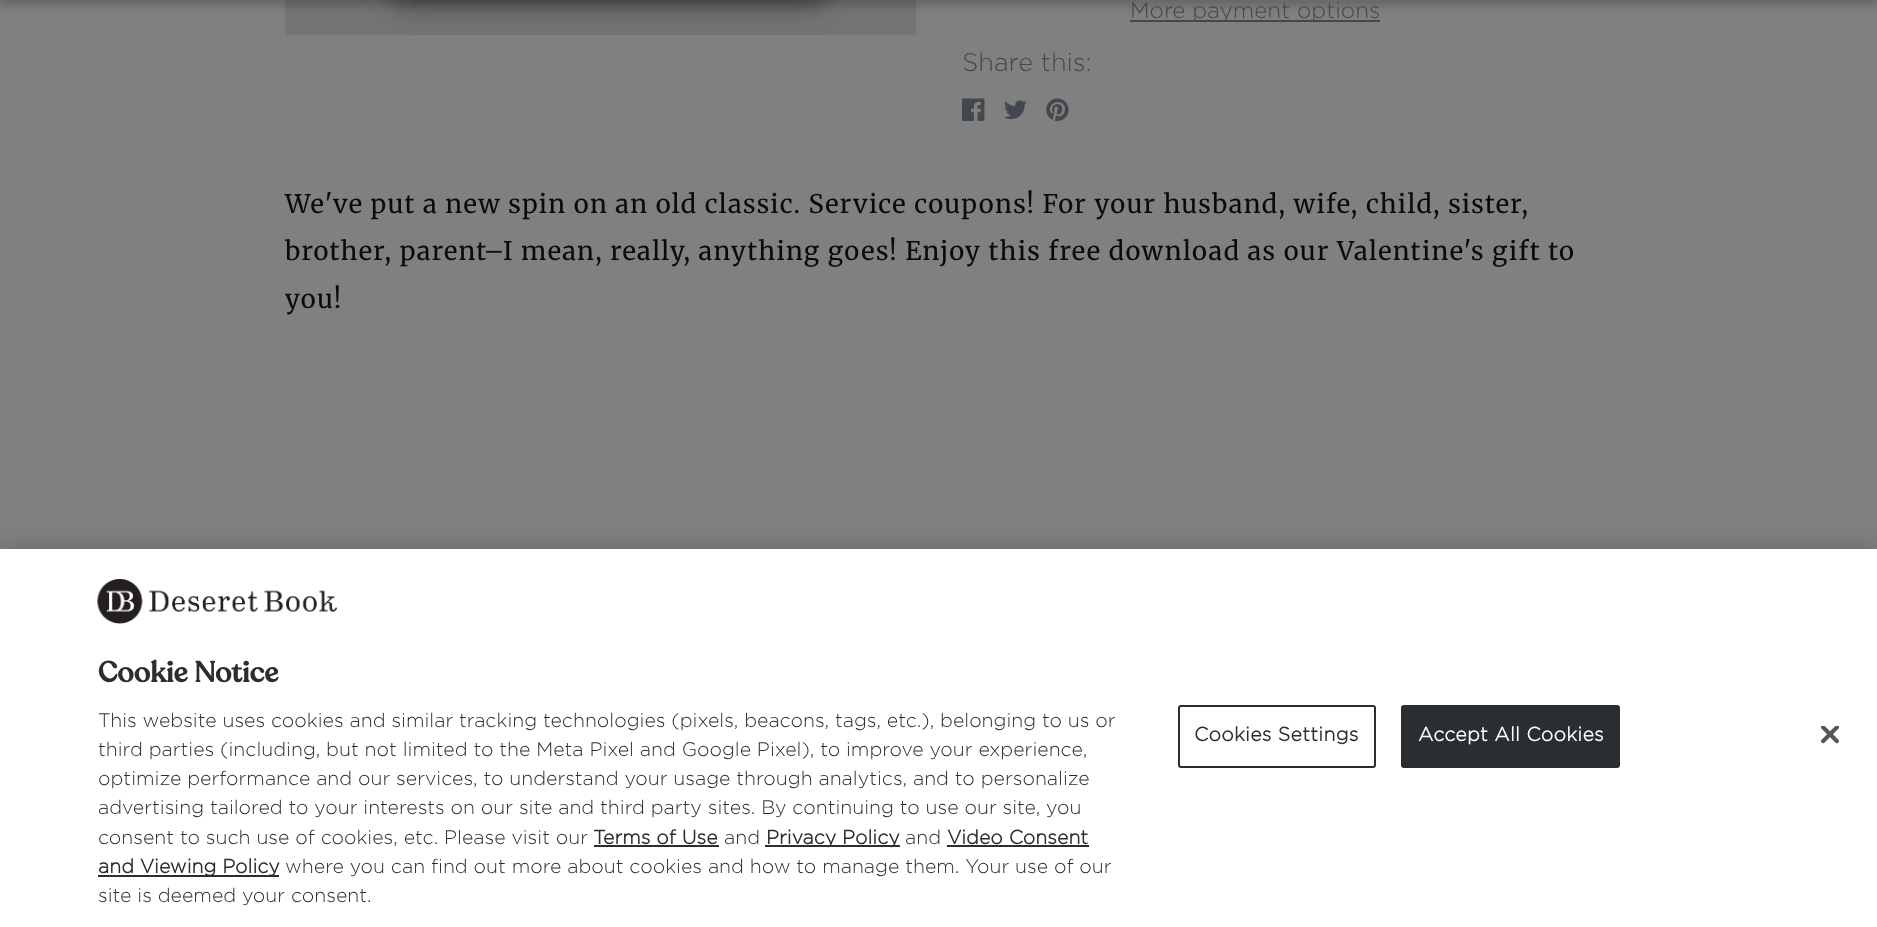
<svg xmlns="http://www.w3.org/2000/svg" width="1877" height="927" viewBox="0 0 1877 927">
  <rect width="100%" height="100%" fill="rgb(128,128,128)"/>
  <image x="285" y="0" width="632" height="36" href="pic1.png"/>
  <rect x="0" y="-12" width="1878" height="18" fill="rgba(0,0,0,0.2)" filter="blur(4px)"/>
  <rect x="1130" y="20" width="250" height="2" fill="rgb(66,72,77)"/>
  <text x="1130" y="18" font-family="Gotham" font-size="22.5" font-weight="300" fill="rgb(66,72,77)">More payment options</text>
  <text x="962" y="71" font-family="Gotham" font-size="25.5" font-weight="300" fill="rgb(66,72,77)">Share this:</text>
  <image x="962" y="98" width="23" height="23" href="pic2.png"/>
  <image x="1004" y="100" width="23" height="20" href="pic3.png"/>
  <image x="1046" y="98" width="23" height="23" href="pic4.png"/>
  <g font-family="Merriweather" font-size="25.5" letter-spacing="1.27" fill="rgb(10,10,10)">
    <text>
      <tspan x="285" y="213">We've put a new spin on an old classic. Service coupons! For your husband, wife, child, sister,</tspan>
      <tspan x="285" y="260">brother, parent–I mean, really, anything goes! Enjoy this free download as our Valentine's gift to</tspan>
      <tspan x="285" y="308">you!</tspan>
    </text>
  </g>
  <rect x="0" y="549" width="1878" height="378" fill="rgba(0,0,0,0.2)" filter="blur(13.5px)"/>
  <rect x="0" y="549" width="1877" height="378" fill="rgb(255,255,255)"/>
  <image x="97" y="579" width="240" height="45" href="pic5.png"/>
  <text x="98" y="682" font-family="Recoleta" font-size="28.75" font-weight="bold" fill="rgb(43,46,48)">Cookie Notice</text>
  <g font-family="Gotham" font-size="19.5" font-weight="300" fill="rgb(43,46,48)">
    <text>
      <tspan x="98" y="727">This website uses cookies and similar tracking technologies (pixels, beacons, tags, etc.), belonging to us or</tspan>
      <tspan x="98" y="756">third parties (including, but not limited to the Meta Pixel and Google Pixel), to improve your experience,</tspan>
      <tspan x="98" y="785">optimize performance and our services, to understand your usage through analytics, and to personalize</tspan>
      <tspan x="98" y="814">advertising tailored to your interests on our site and third party sites. By continuing to use our site, you</tspan>
      <tspan x="98" y="844">consent to such use of cookies, etc. Please visit our</tspan>
    </text>
  </g>
  <text x="593" y="844" font-family="Gotham" font-size="19.5" font-weight="bold" fill="rgb(43,46,48)">Terms of Use</text>
  <rect x="594" y="845" width="125" height="2" fill="rgb(43,46,48)"/>
  <text x="724" y="844" font-family="Gotham" font-size="19.5" font-weight="300" fill="rgb(43,46,48)">and</text>
  <rect x="765" y="845" width="135" height="2" fill="rgb(43,46,48)"/>
  <text x="766" y="844" font-family="Gotham" font-size="19.5" font-weight="bold" fill="rgb(43,46,48)">Privacy Policy</text>
  <text x="905" y="844" font-family="Gotham" font-size="19.5" font-weight="300" fill="rgb(43,46,48)">and</text>
  <text x="947" y="844" font-family="Gotham" font-size="19.5" font-weight="bold" fill="rgb(43,46,48)">Video Consent</text>
  <rect x="947" y="845" width="142" height="2" fill="rgb(43,46,48)"/>
  <rect x="98" y="875" width="181" height="2" fill="rgb(43,46,48)"/>
  <text x="98" y="873" font-family="Gotham" font-size="19.5" font-weight="bold" fill="rgb(43,46,48)">and Viewing Policy</text>
  <g font-family="Gotham" font-size="19.5" font-weight="300" fill="rgb(43,46,48)">
    <text x="285" y="873">where you can find out more about cookies and how to manage them. Your use of our</text>
    <text x="98" y="902">site is deemed your consent.</text>
  </g>
  <rect x="1179" y="706" width="196" height="61" rx="2" fill="none" stroke="rgb(43,46,48)" stroke-width="2"/>
  <text x="1194" y="741" font-family="Gotham" font-size="19.5" font-weight="bold" letter-spacing="0.25" fill="rgb(43,46,48)">Cookies Settings</text>
  <rect x="1402" y="706" width="217" height="61" rx="2" fill="rgb(43,46,48)" stroke="rgb(43,46,48)" stroke-width="2"/>
  <text x="1418" y="741" font-family="Gotham" font-size="19.5" font-weight="bold" letter-spacing="0.25" fill="rgb(255,255,255)">Accept All Cookies</text>
  <image x="1821" y="726" width="18" height="18" href="pic6.png"/>
</svg>
